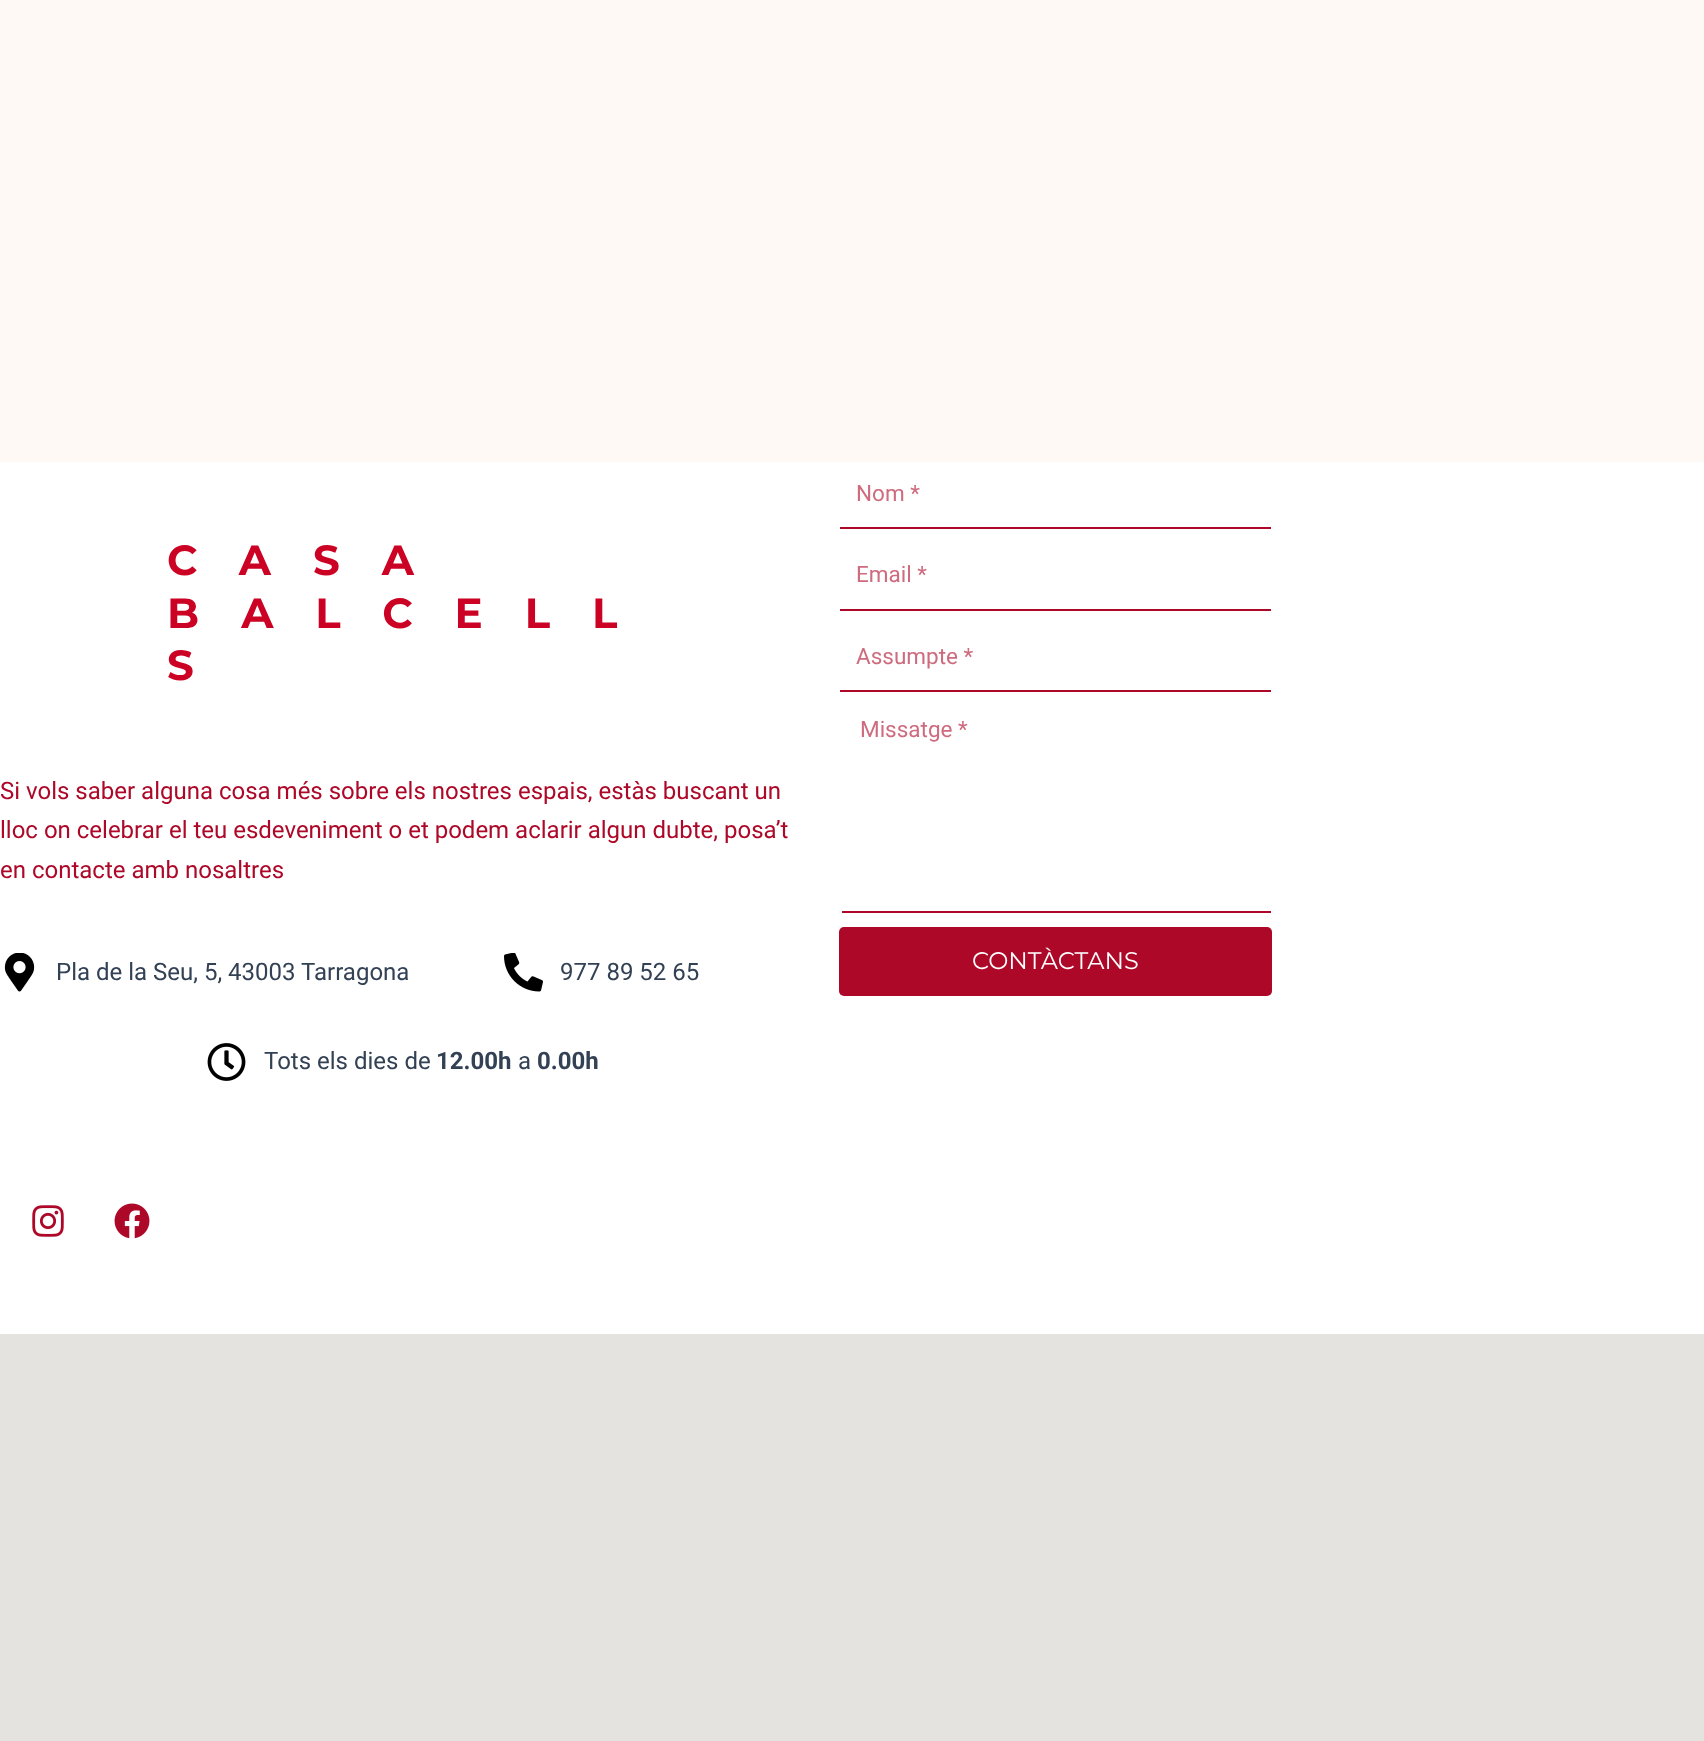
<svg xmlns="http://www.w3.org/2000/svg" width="1704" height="1741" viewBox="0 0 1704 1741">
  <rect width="100%" height="100%" fill="rgb(255,255,255)"/>
  <rect x="0" y="0" width="1704" height="462" fill="rgb(254,249,245)"/>
  <g font-family="Montserrat" font-size="42" font-weight="bold" letter-spacing="42" fill="rgb(204,2,37)">
    <text>
      <tspan x="167" y="575">CASA</tspan>
      <tspan x="167" y="628">BALCELL</tspan>
      <tspan x="167" y="680">S</tspan>
    </text>
  </g>
  <g font-family="Roboto" font-size="24" fill="rgb(173,8,40)">
    <text>
      <tspan x="0" y="799">Si vols saber alguna cosa més sobre els nostres espais, estàs buscant un</tspan>
      <tspan x="0" y="838">lloc on celebrar el teu esdeveniment o et podem aclarir algun dubte, posa’t</tspan>
      <tspan x="0" y="878">en contacte amb nosaltres</tspan>
    </text>
  </g>
  <image x="4" y="953" width="31" height="39" href="pic1.png"/>
  <text x="56" y="980" font-family="Roboto" font-size="24" fill="rgb(51,65,85)">Pla de la Seu, 5, 43003 Tarragona</text>
  <image x="504" y="953" width="39" height="39" href="pic2.png"/>
  <text x="560" y="980" font-family="Roboto" font-size="24" fill="rgb(51,65,85)">977 89 52 65</text>
  <image x="207" y="1043" width="39" height="38" href="pic3.png"/>
  <text x="264" y="1069" font-family="Roboto" font-size="24" fill="rgb(51,65,85)">Tots els dies de</text>
  <text x="436" y="1069" font-family="Roboto" font-size="24" font-weight="bold" fill="rgb(51,65,85)">12.00h</text>
  <text x="518" y="1069" font-family="Roboto" font-size="24" fill="rgb(51,65,85)">a</text>
  <text x="537" y="1069" font-family="Roboto" font-size="24" font-weight="bold" fill="rgb(51,65,85)">0.00h</text>
  <image x="32" y="1205" width="32" height="32" href="pic4.png"/>
  <image x="114" y="1203" width="36" height="36" href="pic5.png"/>
  <rect x="840" y="527" width="431" height="2" fill="rgb(173,8,40)"/>
  <text x="856" y="501" font-family="Roboto" font-size="22.5" fill="rgb(206,107,126)">Nom *</text>
  <rect x="840" y="609" width="431" height="2" fill="rgb(173,8,40)"/>
  <text x="856" y="582" font-family="Roboto" font-size="22.5" fill="rgb(206,107,126)">Email *</text>
  <rect x="840" y="690" width="431" height="2" fill="rgb(173,8,40)"/>
  <text x="856" y="664" font-family="Roboto" font-size="22.5" fill="rgb(206,107,126)">Assumpte *</text>
  <rect x="842" y="911" width="429" height="2" fill="rgb(173,8,40)"/>
  <text x="860" y="737" font-family="Roboto" font-size="22.5" fill="rgb(206,107,126)">Missatge *</text>
  <rect x="839" y="927" width="433" height="69" rx="5" fill="rgb(173,8,40)"/>
  <text x="972" y="969" font-family="Montserrat" font-size="24" fill="rgb(255,255,255)">CONTÀCTANS</text>
  <rect x="0" y="1334" width="1704" height="407" fill="rgb(229,227,223)"/>
</svg>
